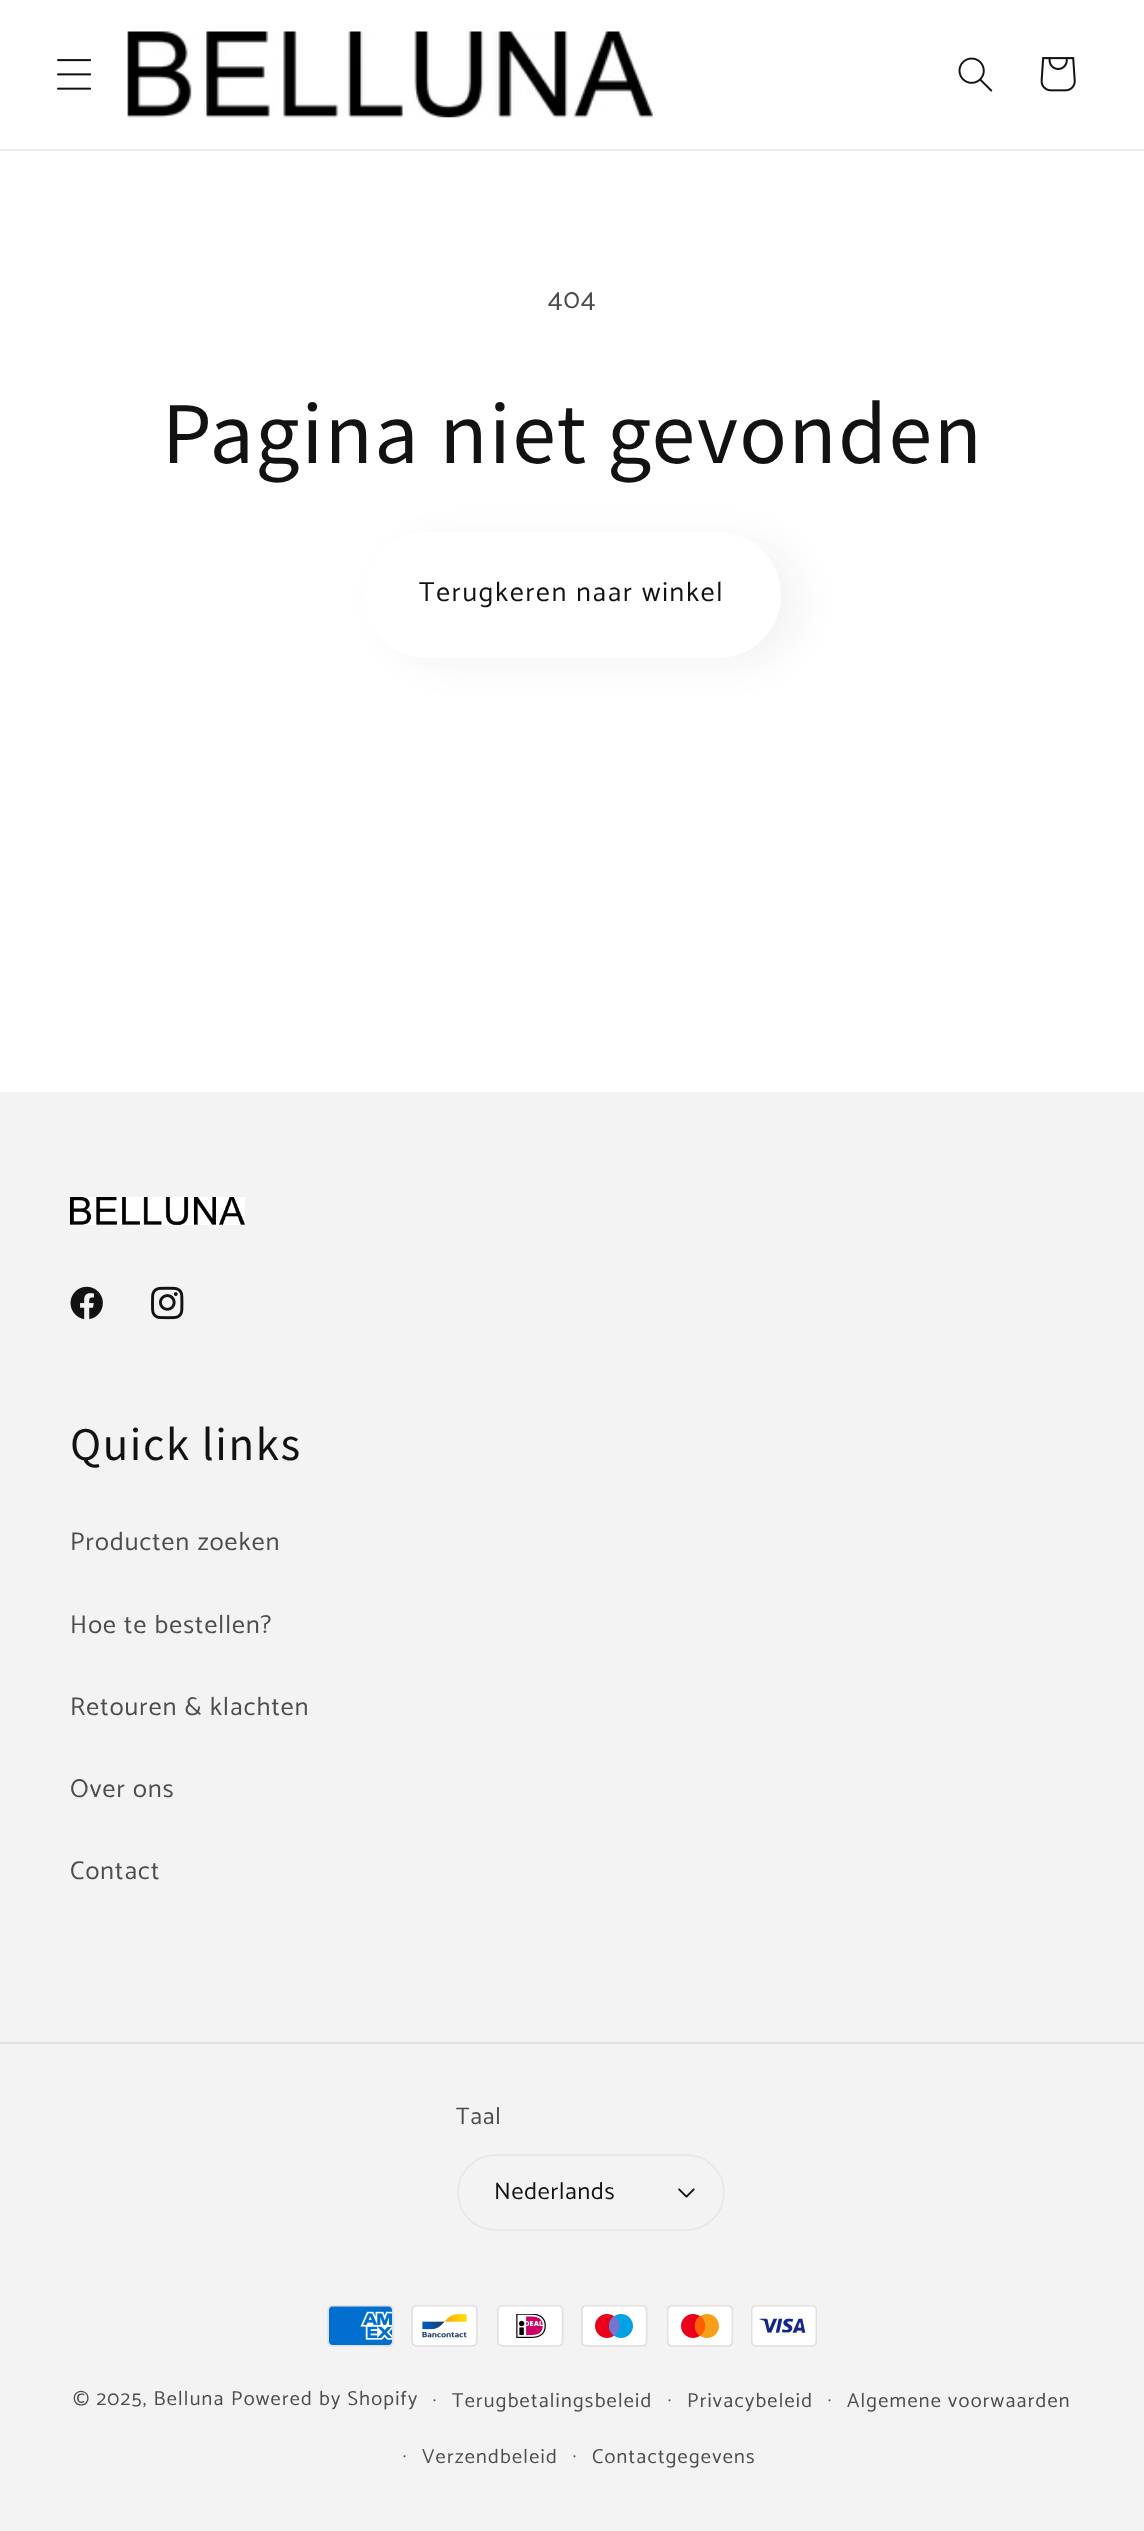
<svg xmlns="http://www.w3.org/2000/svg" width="1144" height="2531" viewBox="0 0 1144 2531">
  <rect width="100%" height="100%" fill="rgb(255,255,255)"/>
  <rect x="0" y="149" width="1144" height="2" fill="rgb(236,236,236)"/>
  <image x="57" y="59" width="35" height="31" href="pic1.png"/>
  <image x="127" y="31" width="526" height="87" href="pic2.png"/>
  <image x="958" y="57" width="35" height="35" href="pic3.png"/>
  <image x="1040" y="57" width="36" height="35" href="pic4.png"/>
  <text x="548" y="308" font-family="Catamaran" font-size="27.5" letter-spacing="1.1" fill="rgb(77,77,77)">404</text>
  <text x="162" y="463" font-family="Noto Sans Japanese" font-size="78.75" letter-spacing="1.6" fill="rgb(18,18,18)">Pagina niet gevonden</text>
  <rect x="385" y="539" width="417" height="126" rx="63" fill="rgba(18,18,18,0.05)" filter="blur(17.5px)"/>
  <rect x="364" y="532" width="417" height="126" rx="63" fill="rgb(255,255,255)"/>
  <text x="419" y="601" font-family="Catamaran" font-size="27.5" letter-spacing="1.8" fill="rgb(18,18,18)">Terugkeren naar winkel</text>
  <rect x="0" y="1092" width="1144" height="1439" fill="rgb(243,243,243)"/>
  <image x="70" y="1197" width="175" height="28" href="pic5.png"/>
  <image x="70" y="1286" width="33" height="34" href="pic6.png"/>
  <image x="151" y="1286" width="33" height="34" href="pic7.png"/>
  <text x="70" y="1460" font-family="Noto Sans Japanese" font-size="42" letter-spacing="1.6" fill="rgb(18,18,18)">Quick links</text>
  <g font-family="Catamaran" font-size="25.75" letter-spacing="1.1" fill="rgb(77,77,77)">
    <text x="70" y="1550">Producten zoeken</text>
    <text x="70" y="1633">Hoe te bestellen?</text>
    <text x="70" y="1715">Retouren &amp; klachten</text>
    <text x="70" y="1797">Over ons</text>
    <text x="70" y="1879">Contact</text>
  </g>
  <rect x="0" y="2042" width="1144" height="2" fill="rgb(225,225,225)"/>
  <text x="456" y="2124" font-family="Catamaran" font-size="24" letter-spacing="0.75" fill="rgb(77,77,77)">Taal</text>
  <image x="678" y="2188" width="17" height="10" href="pic8.png"/>
  <rect x="458" y="2155" width="266" height="75" rx="37.5" fill="none" stroke="rgb(232,232,232)" stroke-width="2"/>
  <text x="494" y="2199" font-family="Catamaran" font-size="24" letter-spacing="0.75" fill="rgb(18,18,18)">Nederlands</text>
  <image x="327" y="2305" width="67" height="42" href="pic9.png"/>
  <image x="411" y="2305" width="67" height="42" href="pic10.png"/>
  <image x="497" y="2305" width="67" height="42" href="pic11.png"/>
  <image x="581" y="2305" width="67" height="42" href="pic12.png"/>
  <image x="667" y="2305" width="66" height="42" href="pic13.png"/>
  <image x="751" y="2305" width="66" height="42" href="pic14.png"/>
  <g font-family="Catamaran" font-size="20.25" letter-spacing="1.25" fill="rgb(77,77,77)">
    <text x="73" y="2405">© 2025, Belluna</text>
    <text x="231" y="2405">Powered by Shopify</text>
  </g>
  <text x="433" y="2405" font-family="Catamaran" font-size="18" letter-spacing="1.25" fill="rgb(77,77,77)">·</text>
  <text x="452" y="2407" font-family="Catamaran" font-size="20.25" letter-spacing="1.25" fill="rgb(77,77,77)">Terugbetalingsbeleid</text>
  <text x="668" y="2405" font-family="Catamaran" font-size="18" letter-spacing="1.25" fill="rgb(77,77,77)">·</text>
  <text x="687" y="2407" font-family="Catamaran" font-size="20.25" letter-spacing="1.25" fill="rgb(77,77,77)">Privacybeleid</text>
  <text x="828" y="2405" font-family="Catamaran" font-size="18" letter-spacing="1.25" fill="rgb(77,77,77)">·</text>
  <text x="847" y="2407" font-family="Catamaran" font-size="20.25" letter-spacing="1.25" fill="rgb(77,77,77)">Algemene voorwaarden</text>
  <text x="403" y="2461" font-family="Catamaran" font-size="18" letter-spacing="1.25" fill="rgb(77,77,77)">·</text>
  <text x="422" y="2463" font-family="Catamaran" font-size="20.25" letter-spacing="1.25" fill="rgb(77,77,77)">Verzendbeleid</text>
  <text x="573" y="2461" font-family="Catamaran" font-size="18" letter-spacing="1.25" fill="rgb(77,77,77)">·</text>
  <text x="592" y="2463" font-family="Catamaran" font-size="20.25" letter-spacing="1.25" fill="rgb(77,77,77)">Contactgegevens</text>
</svg>
